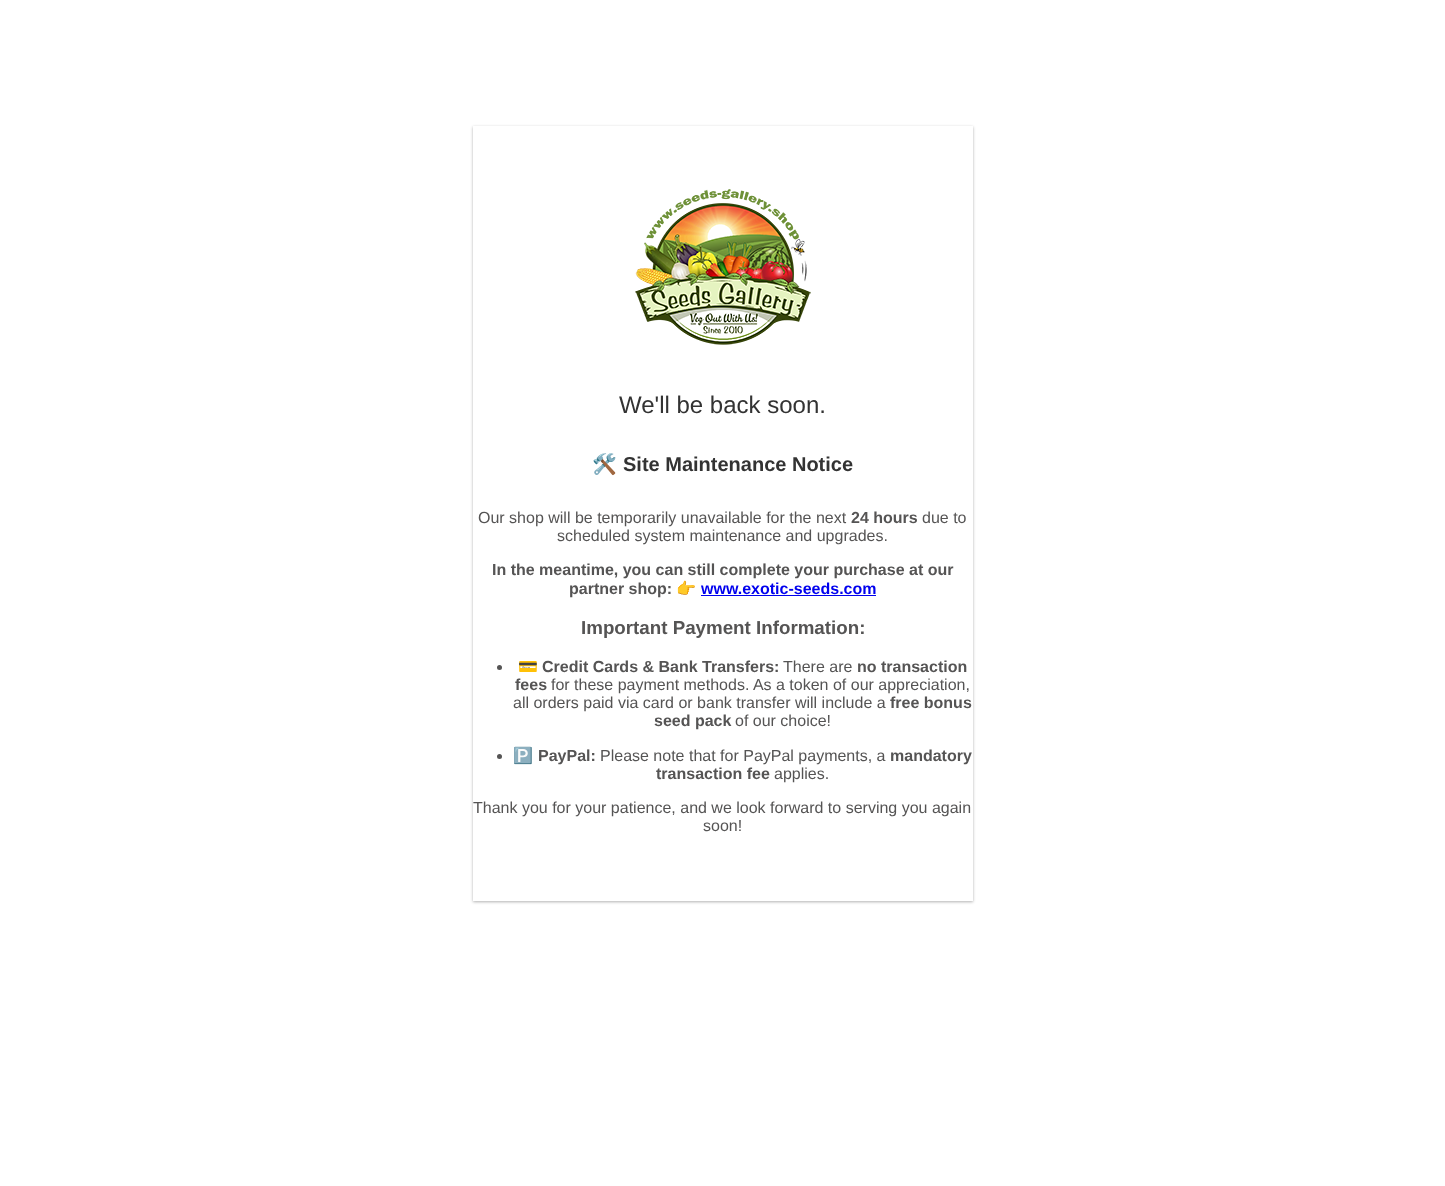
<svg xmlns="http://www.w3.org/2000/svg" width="1445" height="1186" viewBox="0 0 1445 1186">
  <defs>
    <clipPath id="clip1"><path d="M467 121H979V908H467ZM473 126H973V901H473Z" clip-rule="evenodd"/></clipPath>
  </defs>
  <rect width="100%" height="100%" fill="rgb(255,255,255)"/>
  <g clip-path="url(#clip1)">
    <rect x="473" y="127" width="500" height="775" fill="rgba(0,0,0,0.3)" filter="blur(1.5px)"/>
  </g>
  <image x="635" y="189" width="176" height="156" href="pic1.png"/>
  <text x="619" y="413" font-family="Liberation Sans" font-size="24" fill="rgb(51,51,51)">We'll be back soon.</text>
  <text x="592" y="471" font-family="Noto Color Emoji" font-size="20" fill="rgb(51,51,51)">🛠️</text>
  <text x="623" y="471" font-family="Liberation Sans" font-size="20" font-weight="bold" fill="rgb(51,51,51)">Site Maintenance Notice</text>
  <text x="478" y="523" font-family="Liberation Sans" font-size="16" fill="rgb(85,84,84)">Our shop will be temporarily unavailable for the next</text>
  <text x="851" y="523" font-family="Liberation Sans" font-size="16" font-weight="bold" fill="rgb(85,84,84)">24 hours</text>
  <g font-family="Liberation Sans" font-size="16" fill="rgb(85,84,84)">
    <text x="922" y="523">due to</text>
    <text x="557" y="541">scheduled system maintenance and upgrades.</text>
  </g>
  <g font-family="Liberation Sans" font-size="16" font-weight="bold" fill="rgb(85,84,84)">
    <text x="492" y="575">In the meantime, you can still complete your purchase at our</text>
    <text x="569" y="594">partner shop:</text>
  </g>
  <text x="676" y="594" font-family="Noto Color Emoji" font-size="16" font-weight="bold" fill="rgb(85,84,84)">👉</text>
  <text x="701" y="594" font-family="Liberation Sans" font-size="16" font-weight="bold" fill="rgb(0,0,238)">www.exotic-seeds.com</text>
  <rect x="701" y="595" width="175" height="1" fill="rgb(0,0,238)"/>
  <text x="581" y="634" font-family="Liberation Sans" font-size="18.75" font-weight="bold" fill="rgb(85,84,84)">Important Payment Information:</text>
  <circle cx="499.5" cy="667.5" r="2.5" fill="rgb(85,84,84)"/>
  <text x="518" y="672" font-family="Noto Color Emoji" font-size="16" font-weight="bold" fill="rgb(85,84,84)">💳</text>
  <text x="542" y="672" font-family="Liberation Sans" font-size="16" font-weight="bold" fill="rgb(85,84,84)">Credit Cards &amp; Bank Transfers:</text>
  <text x="783" y="672" font-family="Liberation Sans" font-size="16" fill="rgb(85,84,84)">There are</text>
  <g font-family="Liberation Sans" font-size="16" font-weight="bold" fill="rgb(85,84,84)">
    <text x="857" y="672">no transaction</text>
    <text x="515" y="690">fees</text>
  </g>
  <g font-family="Liberation Sans" font-size="16" fill="rgb(85,84,84)">
    <text x="551" y="690">for these payment methods. As a token of our appreciation,</text>
    <text x="513" y="708">all orders paid via card or bank transfer will include a</text>
  </g>
  <g font-family="Liberation Sans" font-size="16" font-weight="bold" fill="rgb(85,84,84)">
    <text x="890" y="708">free bonus</text>
    <text x="654" y="726">seed pack</text>
  </g>
  <text x="735" y="726" font-family="Liberation Sans" font-size="16" fill="rgb(85,84,84)">of our choice!</text>
  <circle cx="499.5" cy="756.5" r="2.5" fill="rgb(85,84,84)"/>
  <text x="513" y="761" font-family="Noto Color Emoji" font-size="16" font-weight="bold" fill="rgb(85,84,84)">🅿️</text>
  <text x="538" y="761" font-family="Liberation Sans" font-size="16" font-weight="bold" fill="rgb(85,84,84)">PayPal:</text>
  <text x="600" y="761" font-family="Liberation Sans" font-size="16" fill="rgb(85,84,84)">Please note that for PayPal payments, a</text>
  <g font-family="Liberation Sans" font-size="16" font-weight="bold" fill="rgb(85,84,84)">
    <text x="890" y="761">mandatory</text>
    <text x="656" y="779">transaction fee</text>
  </g>
  <g font-family="Liberation Sans" font-size="16" fill="rgb(85,84,84)">
    <text x="774" y="779">applies.</text>
    <text x="473" y="813">Thank you for your patience, and we look forward to serving you again</text>
    <text x="703" y="831">soon!</text>
  </g>
</svg>
